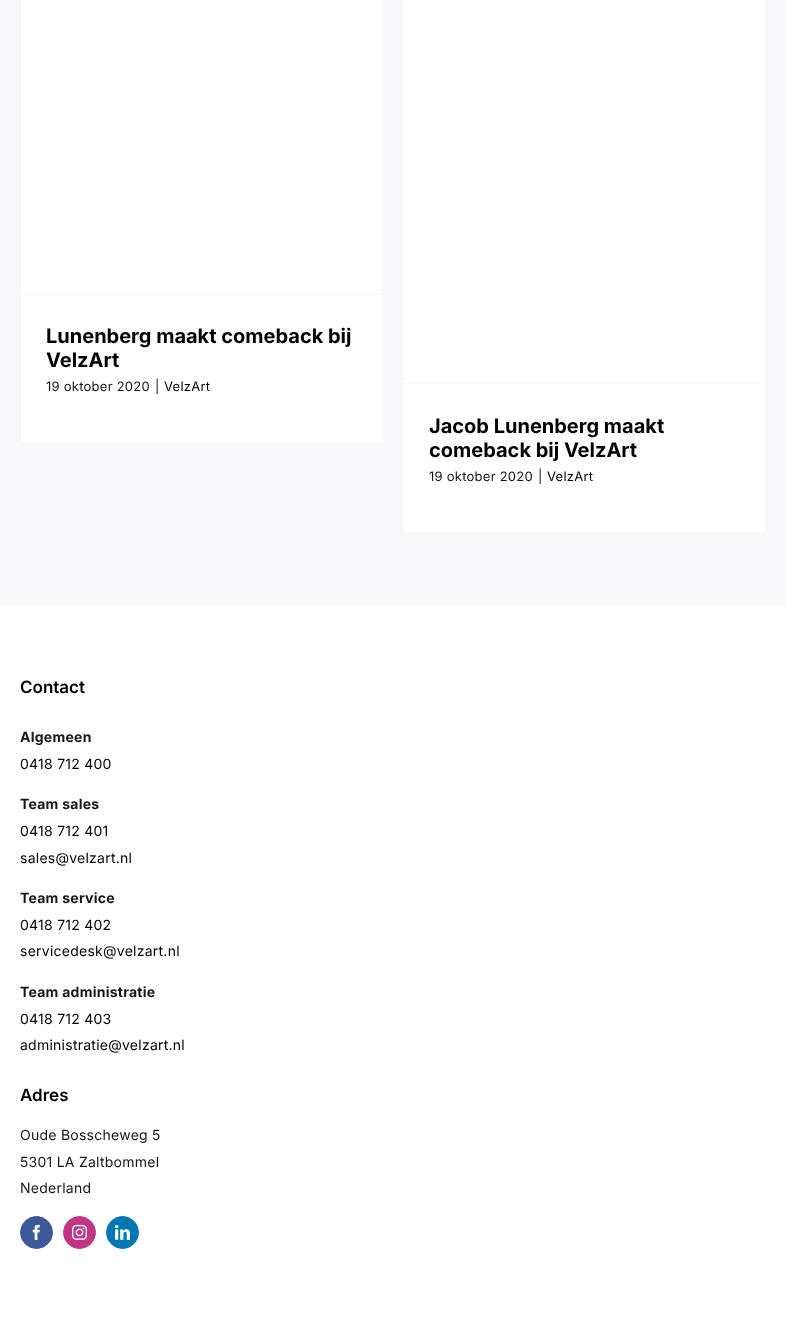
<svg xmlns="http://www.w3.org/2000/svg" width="786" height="1336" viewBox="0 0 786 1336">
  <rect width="100%" height="100%" fill="rgb(255,255,255)"/>
  <rect x="0" y="0" width="786" height="605" fill="rgb(248,248,250)"/>
  <rect x="21" y="0" width="361" height="442" fill="rgb(255,255,255)"/>
  <rect x="21" y="293" width="361" height="1" fill="rgb(249,249,251)"/>
  <g font-family="Inter" font-size="20" font-weight="bold" fill="rgb(0,0,0)">
    <text>
      <tspan x="46" y="343">Lunenberg maakt comeback bij</tspan>
      <tspan x="46" y="367">VelzArt</tspan>
    </text>
  </g>
  <g font-family="Inter" font-size="13" letter-spacing="0.25" fill="rgb(20,22,23)">
    <text x="46" y="391">19 oktober 2020</text>
    <text x="155" y="391">|</text>
  </g>
  <text x="164" y="391" font-family="Inter" font-size="13" letter-spacing="0.25" fill="rgb(0,0,0)">VelzArt</text>
  <rect x="404" y="0" width="361" height="532" fill="rgb(255,255,255)"/>
  <rect x="404" y="383" width="361" height="1" fill="rgb(249,249,251)"/>
  <g font-family="Inter" font-size="20" font-weight="bold" fill="rgb(0,0,0)">
    <text>
      <tspan x="429" y="433">Jacob Lunenberg maakt</tspan>
      <tspan x="429" y="457">comeback bij VelzArt</tspan>
    </text>
  </g>
  <g font-family="Inter" font-size="13" letter-spacing="0.25" fill="rgb(20,22,23)">
    <text x="429" y="481">19 oktober 2020</text>
    <text x="538" y="481">|</text>
  </g>
  <text x="547" y="481" font-family="Inter" font-size="13" letter-spacing="0.25" fill="rgb(0,0,0)">VelzArt</text>
  <text x="20" y="693" font-family="Inter" font-size="17" font-weight="600" fill="rgb(0,0,0)">Contact</text>
  <text x="20" y="742" font-family="Inter" font-size="14" font-weight="bold" letter-spacing="0.25" fill="rgb(20,22,23)">Algemeen</text>
  <text x="20" y="769" font-family="Inter" font-size="14" letter-spacing="0.25" fill="rgb(0,0,0)">0418 712 400</text>
  <text x="20" y="809" font-family="Inter" font-size="14" font-weight="bold" letter-spacing="0.25" fill="rgb(20,22,23)">Team sales</text>
  <g font-family="Inter" font-size="14" letter-spacing="0.25" fill="rgb(0,0,0)">
    <text>
      <tspan x="20" y="836">0418 712 401</tspan>
      <tspan x="20" y="863">sales@velzart.nl</tspan>
    </text>
  </g>
  <text x="20" y="903" font-family="Inter" font-size="14" font-weight="bold" letter-spacing="0.25" fill="rgb(20,22,23)">Team service</text>
  <g font-family="Inter" font-size="14" letter-spacing="0.25" fill="rgb(0,0,0)">
    <text>
      <tspan x="20" y="930">0418 712 402</tspan>
      <tspan x="20" y="956">servicedesk@velzart.nl</tspan>
    </text>
  </g>
  <text x="20" y="997" font-family="Inter" font-size="14" font-weight="bold" letter-spacing="0.25" fill="rgb(20,22,23)">Team administratie</text>
  <g font-family="Inter" font-size="14" letter-spacing="0.25" fill="rgb(0,0,0)">
    <text>
      <tspan x="20" y="1024">0418 712 403</tspan>
      <tspan x="20" y="1050">administratie@velzart.nl</tspan>
    </text>
  </g>
  <text x="20" y="1101" font-family="Inter" font-size="17" font-weight="600" fill="rgb(0,0,0)">Adres</text>
  <g font-family="Inter" font-size="14" letter-spacing="0.25" fill="rgb(20,22,23)">
    <text>
      <tspan x="20" y="1140">Oude Bosscheweg 5</tspan>
      <tspan x="20" y="1167">5301 LA Zaltbommel</tspan>
      <tspan x="20" y="1193">Nederland</tspan>
    </text>
  </g>
  <circle cx="36.5" cy="1232.5" r="16" fill="rgb(59,89,152)" stroke="rgb(59,89,152)"/>
  <image x="32" y="1224" width="8" height="16" href="pic1.png"/>
  <circle cx="79.5" cy="1232.5" r="16" fill="rgb(193,53,132)" stroke="rgb(193,53,132)"/>
  <image x="72" y="1224" width="15" height="16" href="pic2.png"/>
  <circle cx="122.5" cy="1232.5" r="16" fill="rgb(0,119,181)" stroke="rgb(0,119,181)"/>
  <image x="115" y="1225" width="15" height="15" href="pic3.png"/>
</svg>
